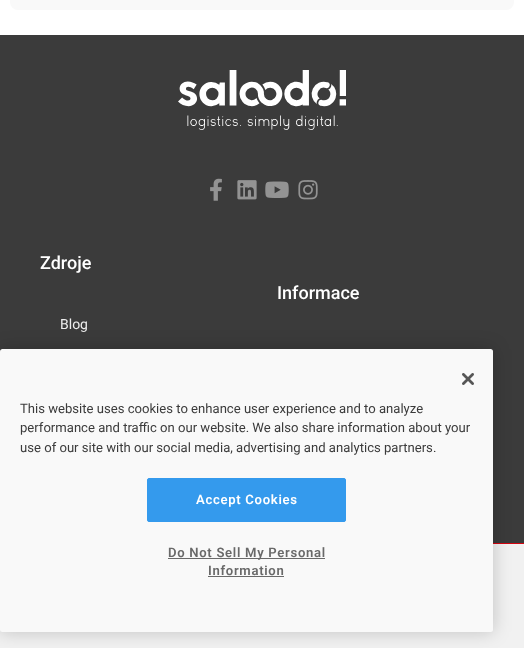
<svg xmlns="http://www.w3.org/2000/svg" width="524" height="648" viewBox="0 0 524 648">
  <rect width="100%" height="100%" fill="rgb(255,255,255)"/>
  <rect x="10" y="-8" width="504" height="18" rx="8" fill="rgb(249,249,249)"/>
  <rect x="0" y="35" width="524" height="508" fill="rgb(59,59,59)"/>
  <image x="178" y="70" width="168" height="60" href="pic1.png"/>
  <image x="210" y="178" width="12" height="23" href="pic2.png"/>
  <image x="237" y="180" width="20" height="20" href="pic3.png"/>
  <image x="265" y="181" width="24" height="17" href="pic4.png"/>
  <image x="298" y="180" width="20" height="20" href="pic5.png"/>
  <text x="40" y="269" font-family="Roboto" font-size="18" font-weight="500" fill="rgb(255,255,255)">Zdroje</text>
  <text x="60" y="329" font-family="Roboto" font-size="14" fill="rgb(237,237,237)">Blog</text>
  <text x="277" y="299" font-family="Roboto" font-size="18" font-weight="500" fill="rgb(255,255,255)">Informace</text>
  <rect x="0" y="544" width="524" height="104" fill="rgb(241,241,241)"/>
  <rect x="493" y="543" width="31" height="1" fill="rgb(212,5,17)"/>
  <rect x="0" y="349" width="493" height="283" rx="2.5" fill="rgba(0,0,0,0.2)" filter="blur(9px)"/>
  <rect x="0" y="349" width="493" height="283" rx="2.5" fill="rgb(249,249,249)"/>
  <image x="462" y="373" width="12" height="12" href="pic6.png"/>
  <g font-family="Roboto" font-size="13.1" fill="rgb(59,59,59)">
    <text>
      <tspan x="20" y="413">This website uses cookies to enhance user experience and to analyze</tspan>
      <tspan x="20" y="432">performance and traffic on our website. We also share information about your</tspan>
      <tspan x="20" y="452">use of our site with our social media, advertising and analytics partners.</tspan>
    </text>
  </g>
  <rect x="147.5" y="478.5" width="198" height="43" rx="1.5" fill="rgb(52,154,237)" stroke="rgb(52,154,237)"/>
  <text x="196" y="504" font-family="Roboto" font-size="13.1" font-weight="600" letter-spacing="0.7" fill="rgb(255,255,255)">Accept Cookies</text>
  <rect x="168" y="558" width="157" height="1" fill="rgb(105,105,105)"/>
  <g font-family="Roboto" font-size="13.1" font-weight="600" letter-spacing="0.7" fill="rgb(105,105,105)">
    <text x="168" y="557">Do Not Sell My Personal</text>
    <text x="208" y="575">Information</text>
  </g>
  <rect x="208" y="576" width="76" height="1" fill="rgb(105,105,105)"/>
</svg>
